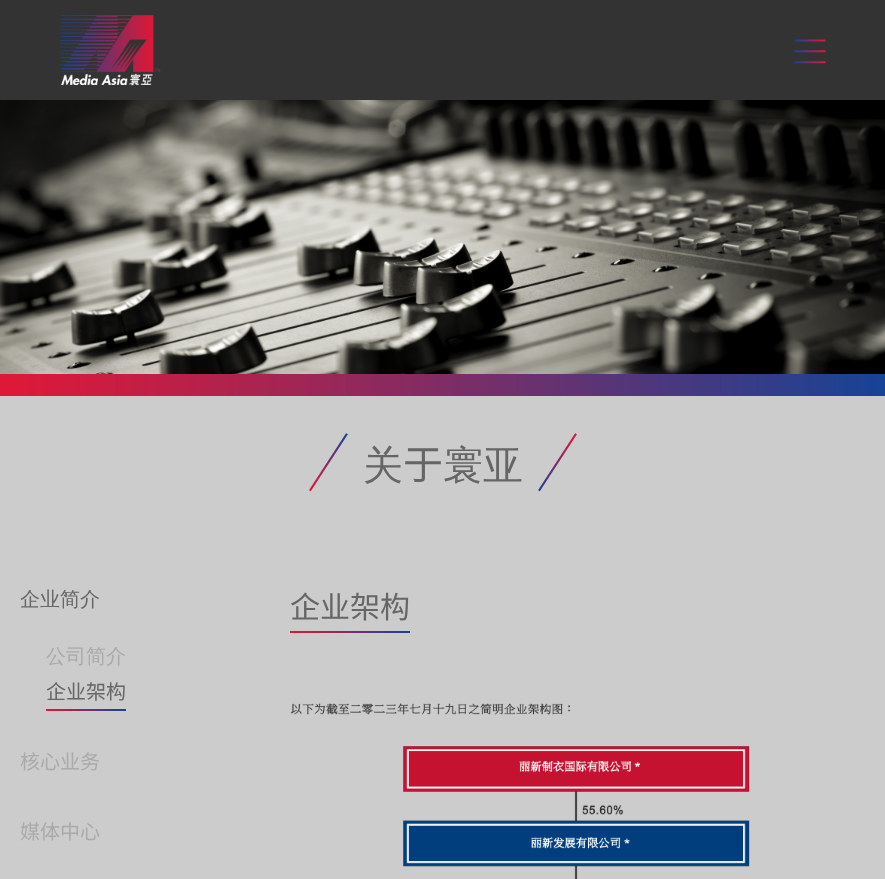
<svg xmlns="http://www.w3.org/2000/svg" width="885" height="879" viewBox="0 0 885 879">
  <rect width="100%" height="100%" fill="rgb(51,51,51)"/>
  <image x="60" y="14" width="101" height="72" href="pic1.png"/>
  <image x="794" y="39" width="32" height="25" href="pic2.png"/>
  <image x="0" y="100" width="885" height="274" href="pic3.png"/>
  <image x="0" y="374" width="885" height="22" href="pic4.png"/>
  <rect x="0" y="396" width="885" height="483" fill="rgb(204,204,204)"/>
  <image x="309" y="433" width="39" height="59" href="pic5.png"/>
  <text x="363" y="479" font-family="WenQuanYi Zen Hei" font-size="40" font-weight="500" fill="rgb(102,102,102)">关</text>
  <text x="403" y="479" font-family="Noto Sans TC" font-size="40" fill="rgb(102,102,102)">于</text>
  <text x="443" y="479" font-family="WenQuanYi Zen Hei" font-size="40" font-weight="500" fill="rgb(102,102,102)">寰亚</text>
  <image x="538" y="433" width="39" height="59" href="pic6.png"/>
  <text x="20" y="606" font-family="WenQuanYi Zen Hei" font-size="20" font-weight="500" fill="rgb(102,102,102)">企业简介</text>
  <text x="46" y="663" font-family="WenQuanYi Zen Hei" font-size="20" font-weight="500" fill="rgb(170,170,170)">公司简介</text>
  <text x="46" y="699" font-family="Noto Sans TC" font-size="20" fill="rgb(102,102,102)">企业架构</text>
  <image x="46" y="709" width="80" height="2" href="pic7.png"/>
  <g font-family="Noto Sans TC" font-size="20" fill="rgb(170,170,170)">
    <text x="20" y="769">核心业务</text>
    <text x="20" y="839">媒体中心</text>
  </g>
  <text x="290" y="618" font-family="Noto Sans TC" font-size="30" fill="rgb(102,102,102)">企业架构</text>
  <image x="290" y="631" width="120" height="2" href="pic8.png"/>
  <image x="290" y="703" width="460" height="176" href="pic9.png"/>
</svg>
